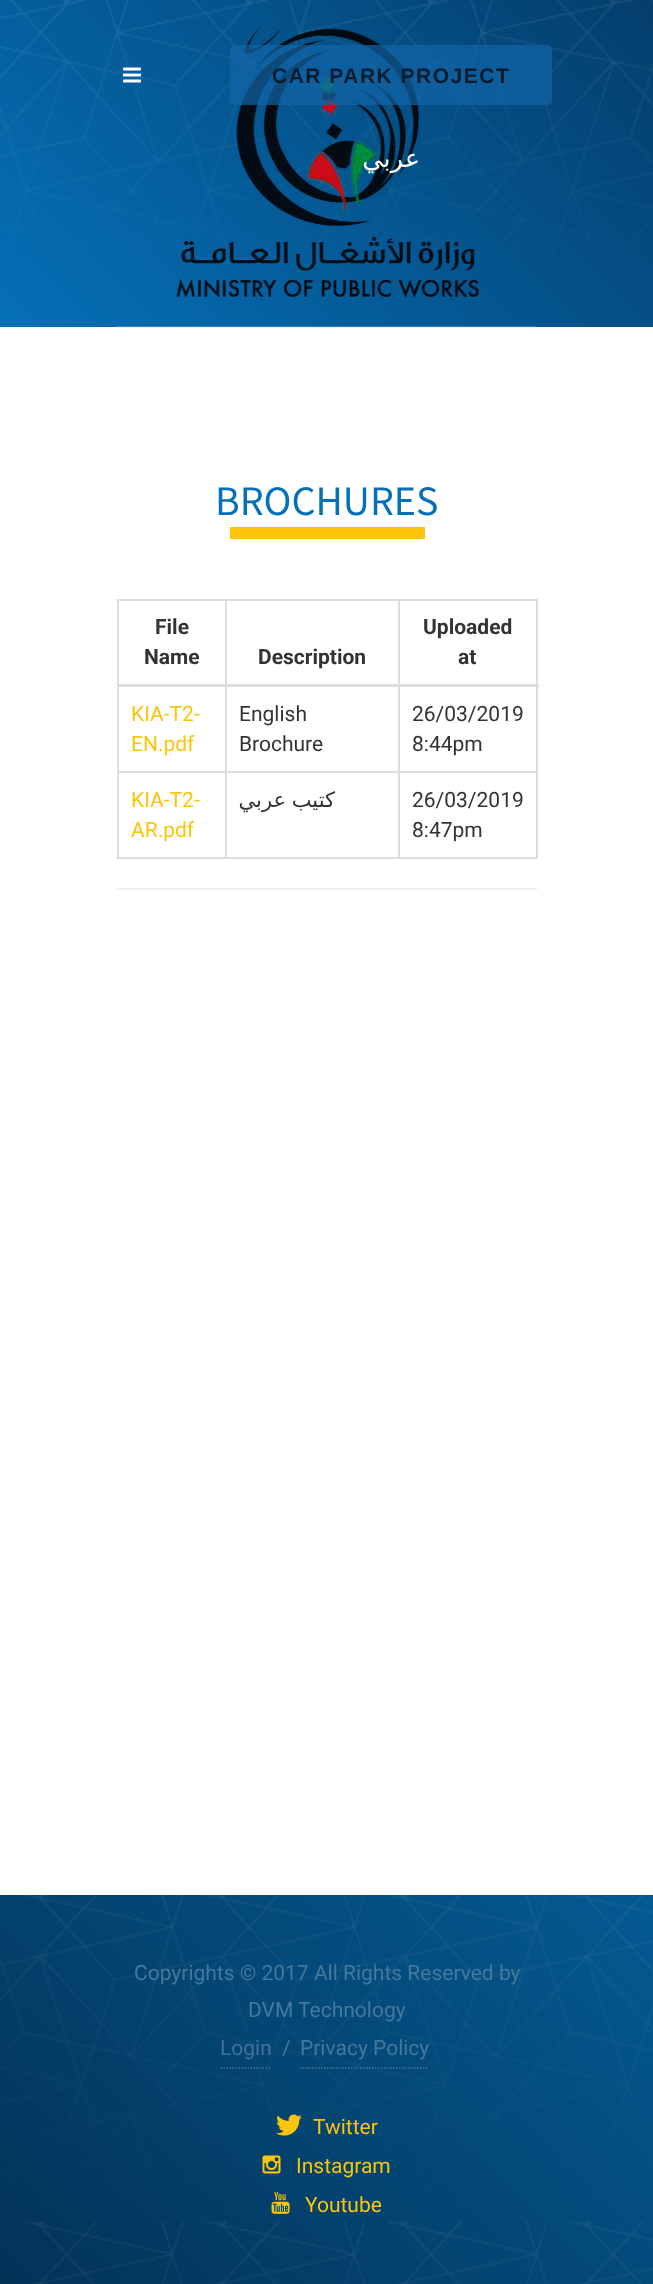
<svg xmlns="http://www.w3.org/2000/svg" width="653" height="2284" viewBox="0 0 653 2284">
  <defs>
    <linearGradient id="g1" gradientUnits="userSpaceOnUse" x1="82" y1="409" x2="572" y2="-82"><stop offset="0" stop-color="rgb(5,112,183)"/><stop offset="1" stop-color="rgb(4,62,108)"/></linearGradient>
    <linearGradient id="g2" gradientUnits="userSpaceOnUse" x1="82" y1="409" x2="572" y2="-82"><stop offset="0" stop-color="rgb(58,142,198)"/><stop offset="1" stop-color="rgb(57,108,148)"/></linearGradient>
    <linearGradient id="g3" gradientUnits="userSpaceOnUse" x1="66" y1="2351" x2="588" y2="1829"><stop offset="0" stop-color="rgb(3,50,86)"/><stop offset="1" stop-color="rgb(4,90,146)"/></linearGradient>
  </defs>
  <rect width="100%" height="100%" fill="rgb(255,255,255)"/>
  <rect x="117" y="327" width="420" height="1" fill="rgb(227,239,247)"/>
  <rect x="0" y="0" width="653" height="327" fill="url(#g1)"/>
  <rect x="117" y="326" width="420" height="1" fill="url(#g2)"/>
  <image x="0" y="0" width="653" height="255" href="pic1.png"/>
  <image x="123" y="67" width="18" height="16" href="pic2.png"/>
  <image x="176" y="24" width="303" height="274" href="pic3.png"/>
  <rect x="230" y="45" width="322" height="60" rx="5" fill="rgba(18,101,168,0.7)"/>
  <text x="272" y="83" font-family="Liberation Sans" font-size="21" font-weight="bold" letter-spacing="1.5" fill="rgb(4,28,46)">CAR PARK PROJECT</text>
  <text x="420" y="167" font-family="DejaVu Sans" font-size="25.5" direction="rtl" fill="rgb(255,255,255)">عربي</text>
  <text x="215" y="515" font-family="Source Sans Pro" font-size="42" fill="rgb(5,112,183)">BROCHURES</text>
  <rect x="230" y="527" width="195" height="12" fill="rgb(252,196,11)"/>
  <rect x="117" y="599" width="420" height="2" fill="rgb(221,221,221)"/>
  <rect x="536" y="599" width="2" height="259" fill="rgb(221,221,221)"/>
  <rect x="117" y="857" width="420" height="2" fill="rgb(221,221,221)"/>
  <rect x="117" y="599" width="2" height="259" fill="rgb(221,221,221)"/>
  <g font-family="Roboto" font-size="21" font-weight="bold" fill="rgb(51,51,51)">
    <text x="155" y="634">File</text>
    <text x="144" y="664">Name</text>
    <text x="258" y="664">Description</text>
  </g>
  <rect x="398" y="771" width="139" height="2" fill="rgb(221,221,221)"/>
  <rect x="398" y="771" width="2" height="87" fill="rgb(221,221,221)"/>
  <rect x="225" y="771" width="174" height="2" fill="rgb(221,221,221)"/>
  <rect x="225" y="771" width="2" height="87" fill="rgb(221,221,221)"/>
  <rect x="117" y="771" width="110" height="2" fill="rgb(221,221,221)"/>
  <rect x="225" y="599" width="2" height="174" fill="rgb(221,221,221)"/>
  <rect x="398" y="599" width="2" height="174" fill="rgb(221,221,221)"/>
  <rect x="117" y="684" width="422" height="3" fill="rgb(221,221,221)"/>
  <g font-family="Roboto" font-size="21" font-weight="bold" fill="rgb(51,51,51)">
    <text x="423" y="634">Uploaded</text>
    <text x="458" y="664">at</text>
  </g>
  <g font-family="Roboto" font-size="21" fill="rgb(252,196,11)">
    <text>
      <tspan x="131" y="721">KIA-T2-</tspan>
      <tspan x="131" y="751">EN.pdf</tspan>
    </text>
  </g>
  <g font-family="Roboto" font-size="21" fill="rgb(51,51,51)">
    <text>
      <tspan x="239" y="721">English</tspan>
      <tspan x="239" y="751">Brochure</tspan>
    </text>
    <text>
      <tspan x="412" y="721">26/03/2019</tspan>
      <tspan x="412" y="751">8:44pm</tspan>
    </text>
  </g>
  <g font-family="Roboto" font-size="21" fill="rgb(252,196,11)">
    <text>
      <tspan x="131" y="807">KIA-T2-</tspan>
      <tspan x="131" y="837">AR.pdf</tspan>
    </text>
  </g>
  <text x="335" y="807" word-spacing="-1" font-family="DejaVu Sans" font-size="21" direction="rtl" fill="rgb(51,51,51)">كتيب عربي</text>
  <g font-family="Roboto" font-size="21" fill="rgb(51,51,51)">
    <text>
      <tspan x="412" y="807">26/03/2019</tspan>
      <tspan x="412" y="837">8:47pm</tspan>
    </text>
  </g>
  <rect x="117" y="888" width="420" height="2" fill="rgb(238,238,238)"/>
  <rect x="0" y="1895" width="653" height="389" fill="url(#g3)"/>
  <image x="0" y="1895" width="653" height="389" href="pic4.png"/>
  <g font-family="Roboto" font-size="21" fill="rgb(68,120,156)">
    <text x="134" y="1980">Copyrights © 2017 All Rights Reserved by</text>
    <text x="248" y="2017">DVM Technology</text>
  </g>
  <path d="M220.5 2068H271.5" fill="none" stroke="rgba(255,255,255,0.25)" stroke-width="1.5" stroke-dasharray="1.5 1.5"/>
  <text x="220" y="2055" font-family="Roboto" font-size="21" fill="rgb(67,115,150)">Login</text>
  <text x="282" y="2055" font-family="Roboto" font-size="21" fill="rgb(68,120,156)">/</text>
  <path d="M300 2068H429" fill="none" stroke="rgba(255,255,255,0.25)" stroke-width="1.5" stroke-dasharray="1.5 1.5"/>
  <text x="300" y="2055" font-family="Roboto" font-size="21" fill="rgb(68,120,156)">Privacy Policy</text>
  <image x="276" y="2114" width="26" height="22" href="pic5.png"/>
  <text x="313" y="2134" font-family="Roboto" font-size="21" fill="rgb(252,196,11)">Twitter</text>
  <image x="262" y="2155" width="19" height="19" href="pic6.png"/>
  <text x="296" y="2173" font-family="Roboto" font-size="21" fill="rgb(252,196,11)">Instagram</text>
  <image x="271" y="2192" width="19" height="22" href="pic7.png"/>
  <text x="305" y="2212" font-family="Roboto" font-size="21" fill="rgb(252,196,11)">Youtube</text>
</svg>
